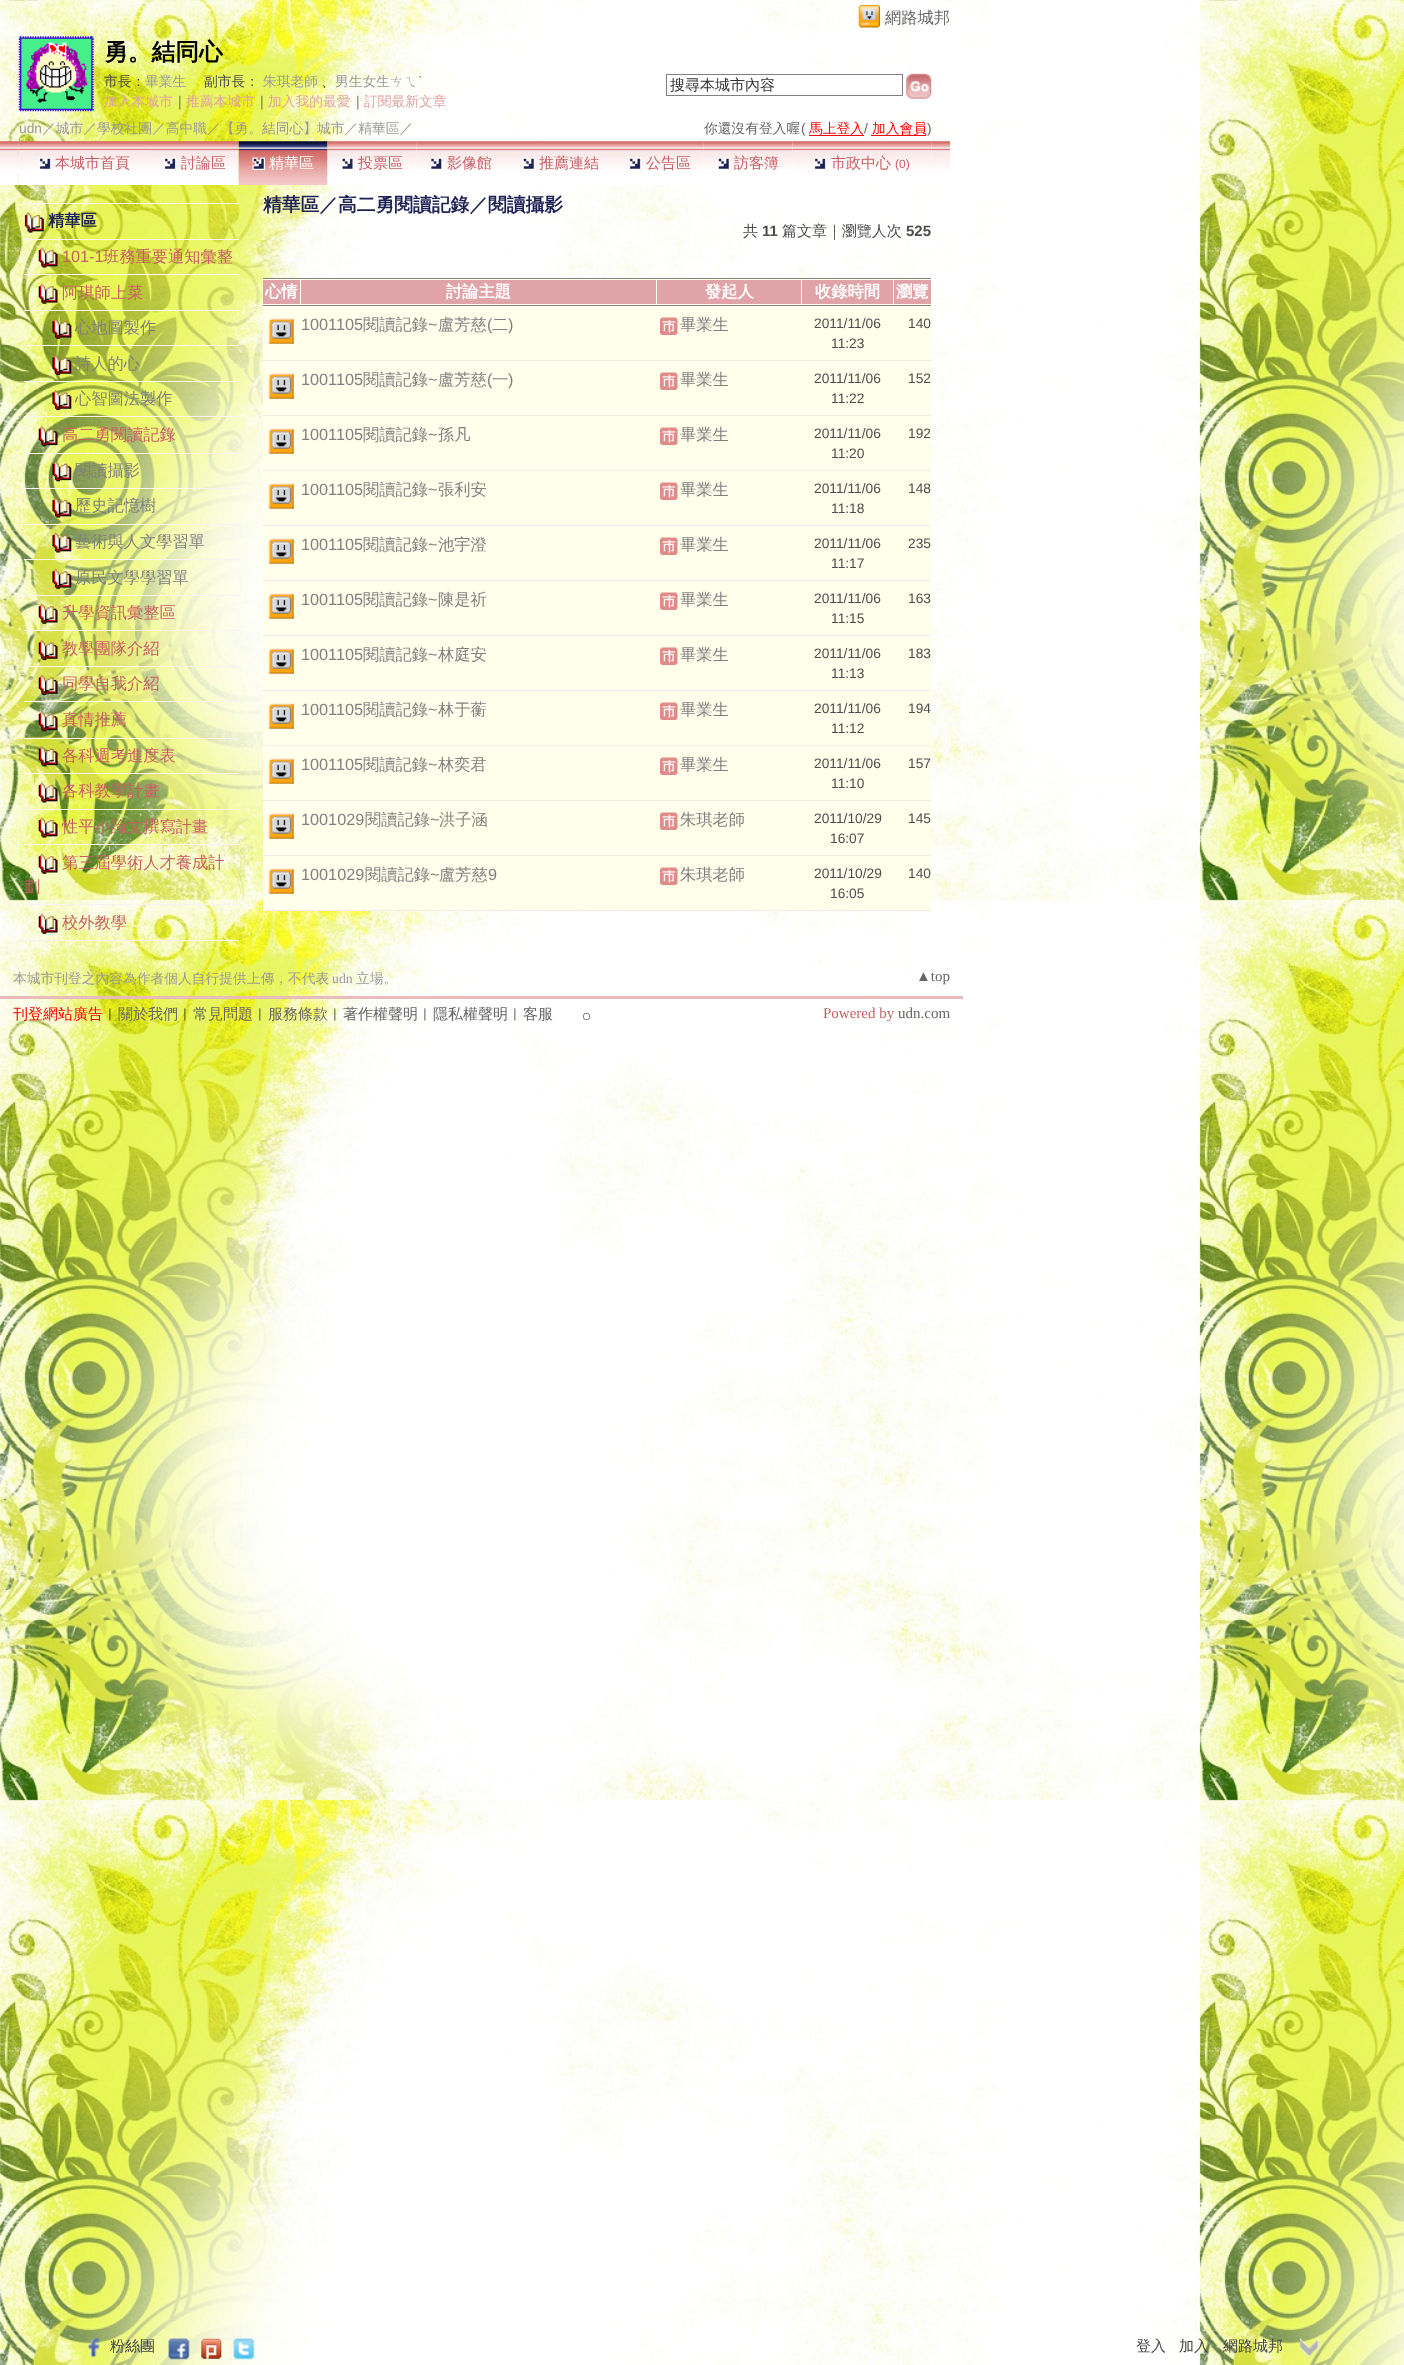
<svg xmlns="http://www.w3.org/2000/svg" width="1404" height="2365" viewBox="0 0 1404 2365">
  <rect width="100%" height="100%" fill="rgb(255,255,255)"/>
  <image x="0" y="0" width="1404" height="2365" href="pic1.png"/>
  <image x="858" y="5" width="22" height="23" href="pic2.png"/>
  <text x="885" y="23" font-family="WenQuanYi Zen Hei" font-size="16.25" font-weight="500" fill="rgb(102,102,102)">網路城邦</text>
  <image x="18" y="36" width="76" height="76" href="pic3.png"/>
  <text x="104" y="60" font-family="WenQuanYi Zen Hei" font-size="23.75" font-weight="bold" fill="rgb(0,0,0)">勇。結同心</text>
  <text x="104" y="86" font-family="WenQuanYi Zen Hei" font-size="13.75" font-weight="500" fill="rgb(77,77,77)">市長：</text>
  <text x="145" y="86" font-family="WenQuanYi Zen Hei" font-size="13.75" font-weight="500" fill="rgb(153,153,153)">畢業生</text>
  <text x="204" y="86" font-family="WenQuanYi Zen Hei" font-size="13.75" font-weight="500" fill="rgb(77,77,77)">副市長：</text>
  <g font-family="WenQuanYi Zen Hei" font-size="13.75" font-weight="500" fill="rgb(153,153,153)">
    <text x="263" y="86">朱琪老師</text>
    <text x="335" y="86">男生女生ㄘㄟ</text>
  </g>
  <text x="418" y="86" font-family="Liberation Sans" font-size="13.75" fill="rgb(153,153,153)">ˋ</text>
  <text x="321" y="86" font-family="WenQuanYi Zen Hei" font-size="13.75" font-weight="500" fill="rgb(0,0,0)">、</text>
  <text x="104" y="106" font-family="WenQuanYi Zen Hei" font-size="13.75" font-weight="500" fill="rgb(224,163,167)">加入本城市</text>
  <text x="173" y="106" font-family="WenQuanYi Zen Hei" font-size="13.75" font-weight="500" fill="rgb(77,77,77)">｜</text>
  <text x="186" y="106" font-family="WenQuanYi Zen Hei" font-size="13.75" font-weight="500" fill="rgb(224,163,167)">推薦本城市</text>
  <text x="255" y="106" font-family="WenQuanYi Zen Hei" font-size="13.75" font-weight="500" fill="rgb(77,77,77)">｜</text>
  <text x="268" y="106" font-family="WenQuanYi Zen Hei" font-size="13.75" font-weight="500" fill="rgb(224,163,167)">加入我的最愛</text>
  <text x="351" y="106" font-family="WenQuanYi Zen Hei" font-size="13.75" font-weight="500" fill="rgb(77,77,77)">｜</text>
  <text x="364" y="106" font-family="WenQuanYi Zen Hei" font-size="13.75" font-weight="500" fill="rgb(224,163,167)">訂閱最新文章</text>
  <rect x="666.5" y="74.5" width="236" height="21" fill="none" stroke="rgb(128,128,128)"/>
  <text x="670" y="90" font-family="WenQuanYi Zen Hei" font-size="15" font-weight="500" fill="rgb(51,51,51)">搜尋本城市內容</text>
  <image x="906" y="73" width="26" height="26" href="pic4.png"/>
  <text x="19" y="133" font-family="Liberation Sans" font-size="13.75" fill="rgb(153,153,153)">udn</text>
  <text x="42" y="133" font-family="WenQuanYi Zen Hei" font-size="13.75" font-weight="500" fill="rgb(153,153,153)">／城市／學校社團／高中職／【勇。結同心】城市／精華區／</text>
  <text x="704" y="133" font-family="WenQuanYi Zen Hei" font-size="13.75" font-weight="500" fill="rgb(102,102,102)">你還沒有登入喔</text>
  <text x="801" y="133" font-family="Liberation Sans" font-size="13.75" fill="rgb(102,102,102)">(</text>
  <rect x="809" y="135" width="55" height="1" fill="rgb(255,0,0)"/>
  <text x="809" y="133" font-family="WenQuanYi Zen Hei" font-size="13.75" font-weight="500" fill="rgb(255,0,0)">馬上登入</text>
  <text x="864" y="133" font-family="Liberation Sans" font-size="13.75" fill="rgb(102,102,102)">/</text>
  <rect x="871" y="135" width="55" height="1" fill="rgb(255,0,0)"/>
  <text x="872" y="133" font-family="WenQuanYi Zen Hei" font-size="13.75" font-weight="500" fill="rgb(255,0,0)">加入會員</text>
  <text x="927" y="133" font-family="Liberation Sans" font-size="13.75" fill="rgb(102,102,102)">)</text>
  <image x="0" y="141" width="19" height="44" href="pic5.png"/>
  <image x="18" y="141" width="132" height="44" href="pic6.png"/>
  <image x="38" y="157" width="14" height="12" href="pic7.png"/>
  <text x="55" y="168" font-family="WenQuanYi Zen Hei" font-size="15" font-weight="500" fill="rgb(201,95,101)">本城市首頁</text>
  <image x="150" y="141" width="89" height="44" href="pic8.png"/>
  <image x="163" y="157" width="14" height="12" href="pic9.png"/>
  <text x="181" y="168" font-family="WenQuanYi Zen Hei" font-size="15" font-weight="500" fill="rgb(201,95,101)">討論區</text>
  <image x="238" y="141" width="90" height="44" href="pic10.png"/>
  <image x="252" y="157" width="13" height="13" href="pic11.png"/>
  <text x="269" y="168" font-family="WenQuanYi Zen Hei" font-size="15" font-weight="500" fill="rgb(255,255,255)">精華區</text>
  <image x="327" y="141" width="90" height="44" href="pic12.png"/>
  <image x="341" y="157" width="13" height="12" href="pic13.png"/>
  <text x="358" y="168" font-family="WenQuanYi Zen Hei" font-size="15" font-weight="500" fill="rgb(201,95,101)">投票區</text>
  <image x="416" y="141" width="89" height="28" href="pic14.png"/>
  <image x="430" y="157" width="13" height="12" href="pic15.png"/>
  <text x="447" y="168" font-family="WenQuanYi Zen Hei" font-size="15" font-weight="500" fill="rgb(201,95,101)">影像館</text>
  <image x="505" y="141" width="110" height="44" href="pic16.png"/>
  <image x="522" y="157" width="13" height="12" href="pic17.png"/>
  <text x="539" y="168" font-family="WenQuanYi Zen Hei" font-size="15" font-weight="500" fill="rgb(201,95,101)">推薦連結</text>
  <image x="615" y="141" width="89" height="44" href="pic18.png"/>
  <image x="628" y="157" width="14" height="12" href="pic9.png"/>
  <text x="646" y="168" font-family="WenQuanYi Zen Hei" font-size="15" font-weight="500" fill="rgb(201,95,101)">公告區</text>
  <image x="703" y="141" width="90" height="28" href="pic19.png"/>
  <image x="717" y="157" width="13" height="12" href="pic17.png"/>
  <text x="734" y="168" font-family="WenQuanYi Zen Hei" font-size="15" font-weight="500" fill="rgb(201,95,101)">訪客簿</text>
  <image x="792" y="141" width="140" height="44" href="pic20.png"/>
  <image x="813" y="157" width="14" height="12" href="pic21.png"/>
  <text x="831" y="168" font-family="WenQuanYi Zen Hei" font-size="15" font-weight="500" fill="rgb(201,95,101)">市政中心</text>
  <text x="895" y="168" font-family="Liberation Sans" font-size="12" fill="rgb(201,95,101)">(0)</text>
  <image x="931" y="141" width="19" height="44" href="pic22.png"/>
  <rect x="24" y="203" width="215" height="1" fill="rgb(251,242,243)"/>
  <image x="24" y="212" width="20" height="21" href="pic23.png"/>
  <text x="48" y="226" font-family="WenQuanYi Zen Hei" font-size="16.25" font-weight="bold" fill="rgb(30,33,83)">精華區</text>
  <rect x="24" y="239" width="215" height="1" fill="rgb(251,242,243)"/>
  <image x="38" y="247" width="20" height="21" href="pic24.png"/>
  <text x="62" y="262" font-family="Liberation Sans" font-size="16.25" fill="rgb(201,95,101)">101-1</text>
  <text x="103" y="262" font-family="WenQuanYi Zen Hei" font-size="16.25" font-weight="500" fill="rgb(201,95,101)">班務重要通知彙整</text>
  <rect x="24" y="274" width="215" height="1" fill="rgb(251,242,243)"/>
  <image x="38" y="283" width="20" height="21" href="pic25.png"/>
  <text x="62" y="298" font-family="WenQuanYi Zen Hei" font-size="16.25" font-weight="500" fill="rgb(201,95,101)">阿琪師上菜</text>
  <rect x="24" y="310" width="215" height="1" fill="rgb(251,242,243)"/>
  <image x="52" y="318" width="20" height="21" href="pic26.png"/>
  <text x="75" y="333" font-family="WenQuanYi Zen Hei" font-size="16.25" font-weight="500" fill="rgb(128,128,128)">心地圖製作</text>
  <rect x="24" y="345" width="215" height="1" fill="rgb(251,242,243)"/>
  <image x="52" y="355" width="20" height="20" href="pic27.png"/>
  <text x="75" y="369" font-family="WenQuanYi Zen Hei" font-size="16.25" font-weight="500" fill="rgb(128,128,128)">詩人的心</text>
  <rect x="24" y="381" width="215" height="1" fill="rgb(251,242,243)"/>
  <image x="52" y="390" width="20" height="20" href="pic28.png"/>
  <text x="75" y="404" font-family="WenQuanYi Zen Hei" font-size="16.25" font-weight="500" fill="rgb(128,128,128)">心智圖法製作</text>
  <rect x="24" y="416" width="215" height="1" fill="rgb(251,242,243)"/>
  <image x="38" y="426" width="20" height="21" href="pic29.png"/>
  <text x="62" y="440" font-family="WenQuanYi Zen Hei" font-size="16.25" font-weight="500" fill="rgb(201,95,101)">高二勇閱讀記錄</text>
  <rect x="24" y="453" width="215" height="1" fill="rgb(251,242,243)"/>
  <image x="52" y="461" width="20" height="21" href="pic30.png"/>
  <text x="75" y="476" font-family="WenQuanYi Zen Hei" font-size="16.25" font-weight="500" fill="rgb(128,128,128)">閱讀攝影</text>
  <rect x="24" y="488" width="215" height="1" fill="rgb(251,242,243)"/>
  <image x="52" y="497" width="20" height="21" href="pic31.png"/>
  <text x="75" y="511" font-family="WenQuanYi Zen Hei" font-size="16.25" font-weight="500" fill="rgb(128,128,128)">歷史記憶樹</text>
  <rect x="24" y="524" width="215" height="1" fill="rgb(251,242,243)"/>
  <image x="52" y="532" width="20" height="21" href="pic32.png"/>
  <text x="75" y="547" font-family="WenQuanYi Zen Hei" font-size="16.25" font-weight="500" fill="rgb(128,128,128)">藝術與人文學習單</text>
  <rect x="24" y="559" width="215" height="1" fill="rgb(251,242,243)"/>
  <image x="52" y="568" width="20" height="21" href="pic33.png"/>
  <text x="75" y="583" font-family="WenQuanYi Zen Hei" font-size="16.25" font-weight="500" fill="rgb(128,128,128)">原民文學學習單</text>
  <rect x="24" y="595" width="215" height="1" fill="rgb(251,242,243)"/>
  <image x="38" y="603" width="20" height="21" href="pic34.png"/>
  <text x="62" y="618" font-family="WenQuanYi Zen Hei" font-size="16.25" font-weight="500" fill="rgb(201,95,101)">升學資訊彙整區</text>
  <rect x="24" y="630" width="215" height="1" fill="rgb(251,242,243)"/>
  <image x="38" y="640" width="20" height="20" href="pic35.png"/>
  <text x="62" y="654" font-family="WenQuanYi Zen Hei" font-size="16.25" font-weight="500" fill="rgb(201,95,101)">教學團隊介紹</text>
  <rect x="24" y="666" width="215" height="1" fill="rgb(251,242,243)"/>
  <image x="38" y="675" width="20" height="20" href="pic36.png"/>
  <text x="62" y="689" font-family="WenQuanYi Zen Hei" font-size="16.25" font-weight="500" fill="rgb(201,95,101)">同學自我介紹</text>
  <rect x="24" y="701" width="215" height="1" fill="rgb(251,242,243)"/>
  <image x="38" y="711" width="20" height="21" href="pic37.png"/>
  <text x="62" y="725" font-family="WenQuanYi Zen Hei" font-size="16.25" font-weight="500" fill="rgb(201,95,101)">真情推薦</text>
  <rect x="24" y="738" width="215" height="1" fill="rgb(251,242,243)"/>
  <image x="38" y="746" width="20" height="21" href="pic38.png"/>
  <text x="62" y="761" font-family="WenQuanYi Zen Hei" font-size="16.25" font-weight="500" fill="rgb(201,95,101)">各科週考進度表</text>
  <rect x="24" y="773" width="215" height="1" fill="rgb(251,242,243)"/>
  <image x="38" y="782" width="20" height="21" href="pic39.png"/>
  <text x="62" y="796" font-family="WenQuanYi Zen Hei" font-size="16.25" font-weight="500" fill="rgb(201,95,101)">各科教學計畫</text>
  <rect x="24" y="809" width="215" height="1" fill="rgb(251,242,243)"/>
  <image x="38" y="817" width="20" height="21" href="pic40.png"/>
  <text x="62" y="832" font-family="WenQuanYi Zen Hei" font-size="16.25" font-weight="500" fill="rgb(201,95,101)">性平小論文撰寫計畫</text>
  <rect x="24" y="844" width="215" height="1" fill="rgb(251,242,243)"/>
  <image x="38" y="853" width="20" height="21" href="pic41.png"/>
  <g font-family="WenQuanYi Zen Hei" font-size="16.25" font-weight="500" fill="rgb(201,95,101)">
    <text x="62" y="868">第三屆學術人才養成計</text>
    <text x="24" y="892">劃</text>
  </g>
  <rect x="24" y="904" width="215" height="1" fill="rgb(251,242,243)"/>
  <image x="38" y="913" width="20" height="21" href="pic42.png"/>
  <text x="62" y="928" font-family="WenQuanYi Zen Hei" font-size="16.25" font-weight="500" fill="rgb(201,95,101)">校外教學</text>
  <rect x="24" y="940" width="215" height="1" fill="rgb(251,242,243)"/>
  <text x="263" y="211" font-family="WenQuanYi Zen Hei" font-size="18.75" font-weight="bold" fill="rgb(30,33,83)">精華區／高二勇閱讀記錄／閱讀攝影</text>
  <text x="743" y="236" font-family="WenQuanYi Zen Hei" font-size="15" font-weight="500" fill="rgb(77,77,77)">共</text>
  <text x="762" y="236" font-family="Liberation Sans" font-size="15" font-weight="bold" fill="rgb(77,77,77)">11</text>
  <text x="782" y="236" font-family="WenQuanYi Zen Hei" font-size="15" font-weight="500" fill="rgb(77,77,77)">篇文章｜瀏覽人次</text>
  <text x="906" y="236" font-family="Liberation Sans" font-size="15" font-weight="bold" fill="rgb(77,77,77)">525</text>
  <rect x="263" y="280" width="668" height="24" fill="rgb(224,163,167)"/>
  <rect x="263" y="278" width="668" height="1" fill="rgb(128,128,128)"/>
  <rect x="263" y="279" width="668" height="1" fill="rgb(255,255,235)"/>
  <text x="265" y="297" font-family="WenQuanYi Zen Hei" font-size="16.25" font-weight="bold" fill="rgb(255,255,255)">心情</text>
  <rect x="300" y="280" width="1" height="24" fill="rgb(255,255,235)"/>
  <text x="446" y="297" font-family="WenQuanYi Zen Hei" font-size="16.25" font-weight="bold" fill="rgb(255,255,255)">討論主題</text>
  <rect x="656" y="280" width="1" height="24" fill="rgb(255,255,235)"/>
  <text x="705" y="297" font-family="WenQuanYi Zen Hei" font-size="16.25" font-weight="bold" fill="rgb(255,255,255)">發起人</text>
  <rect x="801" y="280" width="1" height="24" fill="rgb(255,255,235)"/>
  <text x="815" y="297" font-family="WenQuanYi Zen Hei" font-size="16.25" font-weight="bold" fill="rgb(255,255,255)">收錄時間</text>
  <rect x="893" y="280" width="1" height="24" fill="rgb(255,255,235)"/>
  <text x="896" y="297" font-family="WenQuanYi Zen Hei" font-size="16.25" font-weight="bold" fill="rgb(255,255,255)">瀏覽</text>
  <rect x="263" y="304" width="668" height="1" fill="rgb(255,255,235)"/>
  <rect x="263" y="305" width="668" height="1" fill="rgb(128,128,128)"/>
  <rect x="263" y="306" width="668" height="54" fill="rgb(255,255,235)"/>
  <image x="268" y="318" width="26" height="26" href="pic43.png"/>
  <text x="301" y="330" font-family="Liberation Sans" font-size="16.25" fill="rgb(128,128,128)">1001105</text>
  <text x="363" y="330" font-family="WenQuanYi Zen Hei" font-size="16.25" font-weight="500" fill="rgb(128,128,128)">閱讀記錄</text>
  <text x="428" y="330" font-family="Liberation Sans" font-size="16.25" fill="rgb(128,128,128)">~</text>
  <text x="438" y="330" font-family="WenQuanYi Zen Hei" font-size="16.25" font-weight="500" fill="rgb(128,128,128)">盧芳慈</text>
  <text x="487" y="330" font-family="Liberation Sans" font-size="16.25" fill="rgb(128,128,128)">(</text>
  <text x="492" y="330" font-family="WenQuanYi Zen Hei" font-size="16.25" font-weight="500" fill="rgb(128,128,128)">二</text>
  <text x="508" y="330" font-family="Liberation Sans" font-size="16.25" fill="rgb(128,128,128)">)</text>
  <image x="660" y="317" width="18" height="18" href="pic44.png"/>
  <text x="680" y="330" font-family="WenQuanYi Zen Hei" font-size="16.25" font-weight="500" fill="rgb(128,128,128)">畢業生</text>
  <g font-family="Liberation Sans" font-size="13.75" fill="rgb(77,77,77)">
    <text x="814" y="328">2011/11/06</text>
    <text x="831" y="348">11:23</text>
    <text x="908" y="328">140</text>
  </g>
  <rect x="263" y="360" width="668" height="1" fill="rgb(247,232,232)"/>
  <rect x="263" y="361" width="668" height="54" fill="rgb(255,255,235)"/>
  <image x="268" y="373" width="26" height="26" href="pic43.png"/>
  <text x="301" y="385" font-family="Liberation Sans" font-size="16.25" fill="rgb(128,128,128)">1001105</text>
  <text x="363" y="385" font-family="WenQuanYi Zen Hei" font-size="16.25" font-weight="500" fill="rgb(128,128,128)">閱讀記錄</text>
  <text x="428" y="385" font-family="Liberation Sans" font-size="16.25" fill="rgb(128,128,128)">~</text>
  <text x="438" y="385" font-family="WenQuanYi Zen Hei" font-size="16.25" font-weight="500" fill="rgb(128,128,128)">盧芳慈</text>
  <text x="487" y="385" font-family="Liberation Sans" font-size="16.25" fill="rgb(128,128,128)">(</text>
  <text x="492" y="385" font-family="WenQuanYi Zen Hei" font-size="16.25" font-weight="500" fill="rgb(128,128,128)">一</text>
  <text x="508" y="385" font-family="Liberation Sans" font-size="16.25" fill="rgb(128,128,128)">)</text>
  <image x="660" y="372" width="18" height="18" href="pic44.png"/>
  <text x="680" y="385" font-family="WenQuanYi Zen Hei" font-size="16.25" font-weight="500" fill="rgb(128,128,128)">畢業生</text>
  <g font-family="Liberation Sans" font-size="13.75" fill="rgb(77,77,77)">
    <text x="814" y="383">2011/11/06</text>
    <text x="831" y="403">11:22</text>
    <text x="908" y="383">152</text>
  </g>
  <rect x="263" y="415" width="668" height="1" fill="rgb(247,232,232)"/>
  <rect x="263" y="416" width="668" height="54" fill="rgb(255,255,235)"/>
  <image x="268" y="428" width="26" height="26" href="pic43.png"/>
  <text x="301" y="440" font-family="Liberation Sans" font-size="16.25" fill="rgb(128,128,128)">1001105</text>
  <text x="363" y="440" font-family="WenQuanYi Zen Hei" font-size="16.25" font-weight="500" fill="rgb(128,128,128)">閱讀記錄</text>
  <text x="428" y="440" font-family="Liberation Sans" font-size="16.25" fill="rgb(128,128,128)">~</text>
  <text x="438" y="440" font-family="WenQuanYi Zen Hei" font-size="16.25" font-weight="500" fill="rgb(128,128,128)">孫凡</text>
  <image x="660" y="427" width="18" height="18" href="pic44.png"/>
  <text x="680" y="440" font-family="WenQuanYi Zen Hei" font-size="16.25" font-weight="500" fill="rgb(128,128,128)">畢業生</text>
  <g font-family="Liberation Sans" font-size="13.75" fill="rgb(77,77,77)">
    <text x="814" y="438">2011/11/06</text>
    <text x="831" y="458">11:20</text>
    <text x="908" y="438">192</text>
  </g>
  <rect x="263" y="470" width="668" height="1" fill="rgb(247,232,232)"/>
  <rect x="263" y="471" width="668" height="54" fill="rgb(255,255,235)"/>
  <image x="268" y="483" width="26" height="26" href="pic43.png"/>
  <text x="301" y="495" font-family="Liberation Sans" font-size="16.25" fill="rgb(128,128,128)">1001105</text>
  <text x="363" y="495" font-family="WenQuanYi Zen Hei" font-size="16.25" font-weight="500" fill="rgb(128,128,128)">閱讀記錄</text>
  <text x="428" y="495" font-family="Liberation Sans" font-size="16.25" fill="rgb(128,128,128)">~</text>
  <text x="438" y="495" font-family="WenQuanYi Zen Hei" font-size="16.25" font-weight="500" fill="rgb(128,128,128)">張利安</text>
  <image x="660" y="482" width="18" height="18" href="pic44.png"/>
  <text x="680" y="495" font-family="WenQuanYi Zen Hei" font-size="16.25" font-weight="500" fill="rgb(128,128,128)">畢業生</text>
  <g font-family="Liberation Sans" font-size="13.75" fill="rgb(77,77,77)">
    <text x="814" y="493">2011/11/06</text>
    <text x="831" y="513">11:18</text>
    <text x="908" y="493">148</text>
  </g>
  <rect x="263" y="525" width="668" height="1" fill="rgb(247,232,232)"/>
  <rect x="263" y="526" width="668" height="54" fill="rgb(255,255,235)"/>
  <image x="268" y="538" width="26" height="26" href="pic43.png"/>
  <text x="301" y="550" font-family="Liberation Sans" font-size="16.25" fill="rgb(128,128,128)">1001105</text>
  <text x="363" y="550" font-family="WenQuanYi Zen Hei" font-size="16.25" font-weight="500" fill="rgb(128,128,128)">閱讀記錄</text>
  <text x="428" y="550" font-family="Liberation Sans" font-size="16.25" fill="rgb(128,128,128)">~</text>
  <text x="438" y="550" font-family="WenQuanYi Zen Hei" font-size="16.25" font-weight="500" fill="rgb(128,128,128)">池宇澄</text>
  <image x="660" y="537" width="18" height="18" href="pic44.png"/>
  <text x="680" y="550" font-family="WenQuanYi Zen Hei" font-size="16.25" font-weight="500" fill="rgb(128,128,128)">畢業生</text>
  <g font-family="Liberation Sans" font-size="13.75" fill="rgb(77,77,77)">
    <text x="814" y="548">2011/11/06</text>
    <text x="831" y="568">11:17</text>
    <text x="908" y="548">235</text>
  </g>
  <rect x="263" y="580" width="668" height="1" fill="rgb(247,232,232)"/>
  <rect x="263" y="581" width="668" height="54" fill="rgb(255,255,235)"/>
  <image x="268" y="593" width="26" height="26" href="pic43.png"/>
  <text x="301" y="605" font-family="Liberation Sans" font-size="16.25" fill="rgb(128,128,128)">1001105</text>
  <text x="363" y="605" font-family="WenQuanYi Zen Hei" font-size="16.25" font-weight="500" fill="rgb(128,128,128)">閱讀記錄</text>
  <text x="428" y="605" font-family="Liberation Sans" font-size="16.25" fill="rgb(128,128,128)">~</text>
  <text x="438" y="605" font-family="WenQuanYi Zen Hei" font-size="16.25" font-weight="500" fill="rgb(128,128,128)">陳是祈</text>
  <image x="660" y="592" width="18" height="18" href="pic44.png"/>
  <text x="680" y="605" font-family="WenQuanYi Zen Hei" font-size="16.25" font-weight="500" fill="rgb(128,128,128)">畢業生</text>
  <g font-family="Liberation Sans" font-size="13.75" fill="rgb(77,77,77)">
    <text x="814" y="603">2011/11/06</text>
    <text x="831" y="623">11:15</text>
    <text x="908" y="603">163</text>
  </g>
  <rect x="263" y="635" width="668" height="1" fill="rgb(247,232,232)"/>
  <rect x="263" y="636" width="668" height="54" fill="rgb(255,255,235)"/>
  <image x="268" y="648" width="26" height="26" href="pic43.png"/>
  <text x="301" y="660" font-family="Liberation Sans" font-size="16.25" fill="rgb(128,128,128)">1001105</text>
  <text x="363" y="660" font-family="WenQuanYi Zen Hei" font-size="16.25" font-weight="500" fill="rgb(128,128,128)">閱讀記錄</text>
  <text x="428" y="660" font-family="Liberation Sans" font-size="16.25" fill="rgb(128,128,128)">~</text>
  <text x="438" y="660" font-family="WenQuanYi Zen Hei" font-size="16.25" font-weight="500" fill="rgb(128,128,128)">林庭安</text>
  <image x="660" y="647" width="18" height="18" href="pic44.png"/>
  <text x="680" y="660" font-family="WenQuanYi Zen Hei" font-size="16.25" font-weight="500" fill="rgb(128,128,128)">畢業生</text>
  <g font-family="Liberation Sans" font-size="13.75" fill="rgb(77,77,77)">
    <text x="814" y="658">2011/11/06</text>
    <text x="831" y="678">11:13</text>
    <text x="908" y="658">183</text>
  </g>
  <rect x="263" y="690" width="668" height="1" fill="rgb(247,232,232)"/>
  <rect x="263" y="691" width="668" height="54" fill="rgb(255,255,235)"/>
  <image x="268" y="703" width="26" height="26" href="pic43.png"/>
  <text x="301" y="715" font-family="Liberation Sans" font-size="16.25" fill="rgb(128,128,128)">1001105</text>
  <text x="363" y="715" font-family="WenQuanYi Zen Hei" font-size="16.25" font-weight="500" fill="rgb(128,128,128)">閱讀記錄</text>
  <text x="428" y="715" font-family="Liberation Sans" font-size="16.25" fill="rgb(128,128,128)">~</text>
  <text x="438" y="715" font-family="WenQuanYi Zen Hei" font-size="16.25" font-weight="500" fill="rgb(128,128,128)">林于蘅</text>
  <image x="660" y="702" width="18" height="18" href="pic44.png"/>
  <text x="680" y="715" font-family="WenQuanYi Zen Hei" font-size="16.25" font-weight="500" fill="rgb(128,128,128)">畢業生</text>
  <g font-family="Liberation Sans" font-size="13.75" fill="rgb(77,77,77)">
    <text x="814" y="713">2011/11/06</text>
    <text x="831" y="733">11:12</text>
    <text x="908" y="713">194</text>
  </g>
  <rect x="263" y="745" width="668" height="1" fill="rgb(247,232,232)"/>
  <rect x="263" y="746" width="668" height="54" fill="rgb(255,255,235)"/>
  <image x="268" y="758" width="26" height="26" href="pic43.png"/>
  <text x="301" y="770" font-family="Liberation Sans" font-size="16.25" fill="rgb(128,128,128)">1001105</text>
  <text x="363" y="770" font-family="WenQuanYi Zen Hei" font-size="16.25" font-weight="500" fill="rgb(128,128,128)">閱讀記錄</text>
  <text x="428" y="770" font-family="Liberation Sans" font-size="16.25" fill="rgb(128,128,128)">~</text>
  <text x="438" y="770" font-family="WenQuanYi Zen Hei" font-size="16.25" font-weight="500" fill="rgb(128,128,128)">林奕君</text>
  <image x="660" y="757" width="18" height="18" href="pic44.png"/>
  <text x="680" y="770" font-family="WenQuanYi Zen Hei" font-size="16.25" font-weight="500" fill="rgb(128,128,128)">畢業生</text>
  <g font-family="Liberation Sans" font-size="13.75" fill="rgb(77,77,77)">
    <text x="814" y="768">2011/11/06</text>
    <text x="831" y="788">11:10</text>
    <text x="908" y="768">157</text>
  </g>
  <rect x="263" y="800" width="668" height="1" fill="rgb(247,232,232)"/>
  <rect x="263" y="801" width="668" height="54" fill="rgb(255,255,235)"/>
  <image x="268" y="813" width="26" height="26" href="pic43.png"/>
  <text x="301" y="825" font-family="Liberation Sans" font-size="16.25" fill="rgb(128,128,128)">1001029</text>
  <text x="365" y="825" font-family="WenQuanYi Zen Hei" font-size="16.25" font-weight="500" fill="rgb(128,128,128)">閱讀記錄</text>
  <text x="430" y="825" font-family="Liberation Sans" font-size="16.25" fill="rgb(128,128,128)">~</text>
  <text x="439" y="825" font-family="WenQuanYi Zen Hei" font-size="16.25" font-weight="500" fill="rgb(128,128,128)">洪子涵</text>
  <image x="660" y="812" width="18" height="18" href="pic44.png"/>
  <text x="680" y="825" font-family="WenQuanYi Zen Hei" font-size="16.25" font-weight="500" fill="rgb(128,128,128)">朱琪老師</text>
  <g font-family="Liberation Sans" font-size="13.75" fill="rgb(77,77,77)">
    <text x="814" y="823">2011/10/29</text>
    <text x="830" y="843">16:07</text>
    <text x="908" y="823">145</text>
  </g>
  <rect x="263" y="855" width="668" height="1" fill="rgb(247,232,232)"/>
  <rect x="263" y="856" width="668" height="54" fill="rgb(255,255,235)"/>
  <image x="268" y="868" width="26" height="26" href="pic43.png"/>
  <text x="301" y="880" font-family="Liberation Sans" font-size="16.25" fill="rgb(128,128,128)">1001029</text>
  <text x="365" y="880" font-family="WenQuanYi Zen Hei" font-size="16.25" font-weight="500" fill="rgb(128,128,128)">閱讀記錄</text>
  <text x="430" y="880" font-family="Liberation Sans" font-size="16.25" fill="rgb(128,128,128)">~</text>
  <text x="439" y="880" font-family="WenQuanYi Zen Hei" font-size="16.25" font-weight="500" fill="rgb(128,128,128)">盧芳慈</text>
  <text x="488" y="880" font-family="Liberation Sans" font-size="16.25" fill="rgb(128,128,128)">9</text>
  <image x="660" y="867" width="18" height="18" href="pic44.png"/>
  <text x="680" y="880" font-family="WenQuanYi Zen Hei" font-size="16.25" font-weight="500" fill="rgb(128,128,128)">朱琪老師</text>
  <g font-family="Liberation Sans" font-size="13.75" fill="rgb(77,77,77)">
    <text x="814" y="878">2011/10/29</text>
    <text x="830" y="898">16:05</text>
    <text x="908" y="878">140</text>
  </g>
  <rect x="263" y="910" width="668" height="1" fill="rgb(247,232,232)"/>
  <rect x="0" y="996" width="963" height="3" fill="rgb(232,187,189)"/>
  <text x="13" y="983" font-family="WenQuanYi Zen Hei" font-size="13.75" font-weight="500" fill="rgb(153,153,153)">本城市刊登之內容為作者個人自行提供上傳，不代表</text>
  <text x="332" y="983" font-family="Liberation Serif" font-size="13.75" fill="rgb(153,153,153)">udn</text>
  <text x="356" y="983" font-family="WenQuanYi Zen Hei" font-size="13.75" font-weight="500" fill="rgb(153,153,153)">立場。</text>
  <text x="916" y="981" font-family="Liberation Serif" font-size="15" fill="rgb(102,102,102)">▲top</text>
  <text x="13" y="1019" font-family="WenQuanYi Zen Hei" font-size="15" font-weight="500" fill="rgb(255,0,0)">刊登網站廣告</text>
  <text x="103" y="1019" font-family="WenQuanYi Zen Hei" font-size="15" font-weight="500" fill="rgb(0,0,0)">︱</text>
  <text x="118" y="1019" font-family="WenQuanYi Zen Hei" font-size="15" font-weight="500" fill="rgb(102,102,102)">關於我們</text>
  <text x="178" y="1019" font-family="WenQuanYi Zen Hei" font-size="15" font-weight="500" fill="rgb(0,0,0)">︱</text>
  <text x="193" y="1019" font-family="WenQuanYi Zen Hei" font-size="15" font-weight="500" fill="rgb(102,102,102)">常見問題</text>
  <text x="253" y="1019" font-family="WenQuanYi Zen Hei" font-size="15" font-weight="500" fill="rgb(0,0,0)">︱</text>
  <text x="268" y="1019" font-family="WenQuanYi Zen Hei" font-size="15" font-weight="500" fill="rgb(102,102,102)">服務條款</text>
  <text x="328" y="1019" font-family="WenQuanYi Zen Hei" font-size="15" font-weight="500" fill="rgb(0,0,0)">︱</text>
  <text x="343" y="1019" font-family="WenQuanYi Zen Hei" font-size="15" font-weight="500" fill="rgb(102,102,102)">著作權聲明</text>
  <text x="418" y="1019" font-family="WenQuanYi Zen Hei" font-size="15" font-weight="500" fill="rgb(0,0,0)">︱</text>
  <text x="433" y="1019" font-family="WenQuanYi Zen Hei" font-size="15" font-weight="500" fill="rgb(102,102,102)">隱私權聲明</text>
  <text x="508" y="1019" font-family="WenQuanYi Zen Hei" font-size="15" font-weight="500" fill="rgb(0,0,0)">︱</text>
  <text x="523" y="1019" font-family="WenQuanYi Zen Hei" font-size="15" font-weight="500" fill="rgb(102,102,102)">客服</text>
  <rect x="583.5" y="1013.5" width="6" height="6" rx="2" fill="none" stroke="rgb(118,118,118)"/>
  <text x="823" y="1018" font-family="Liberation Serif" font-size="15" fill="rgb(201,95,101)">Powered by</text>
  <text x="898" y="1018" font-family="Liberation Serif" font-size="15" fill="rgb(102,102,102)">udn.com</text>
  <image x="88" y="2338" width="12" height="19" href="pic45.png"/>
  <text x="110" y="2351" font-family="WenQuanYi Zen Hei" font-size="15" font-weight="500" fill="rgb(68,68,68)">粉絲團</text>
  <image x="168" y="2338" width="22" height="22" href="pic46.png"/>
  <image x="201" y="2338" width="21" height="21" href="pic47.png"/>
  <image x="233" y="2338" width="22" height="22" href="pic48.png"/>
  <g font-family="WenQuanYi Zen Hei" font-size="15" font-weight="500" fill="rgb(68,68,68)">
    <text x="1136" y="2351">登入</text>
    <text x="1179" y="2351">加入</text>
    <text x="1223" y="2351">網路城邦</text>
  </g>
  <image x="1299" y="2338" width="20" height="19" href="pic49.png"/>
</svg>
